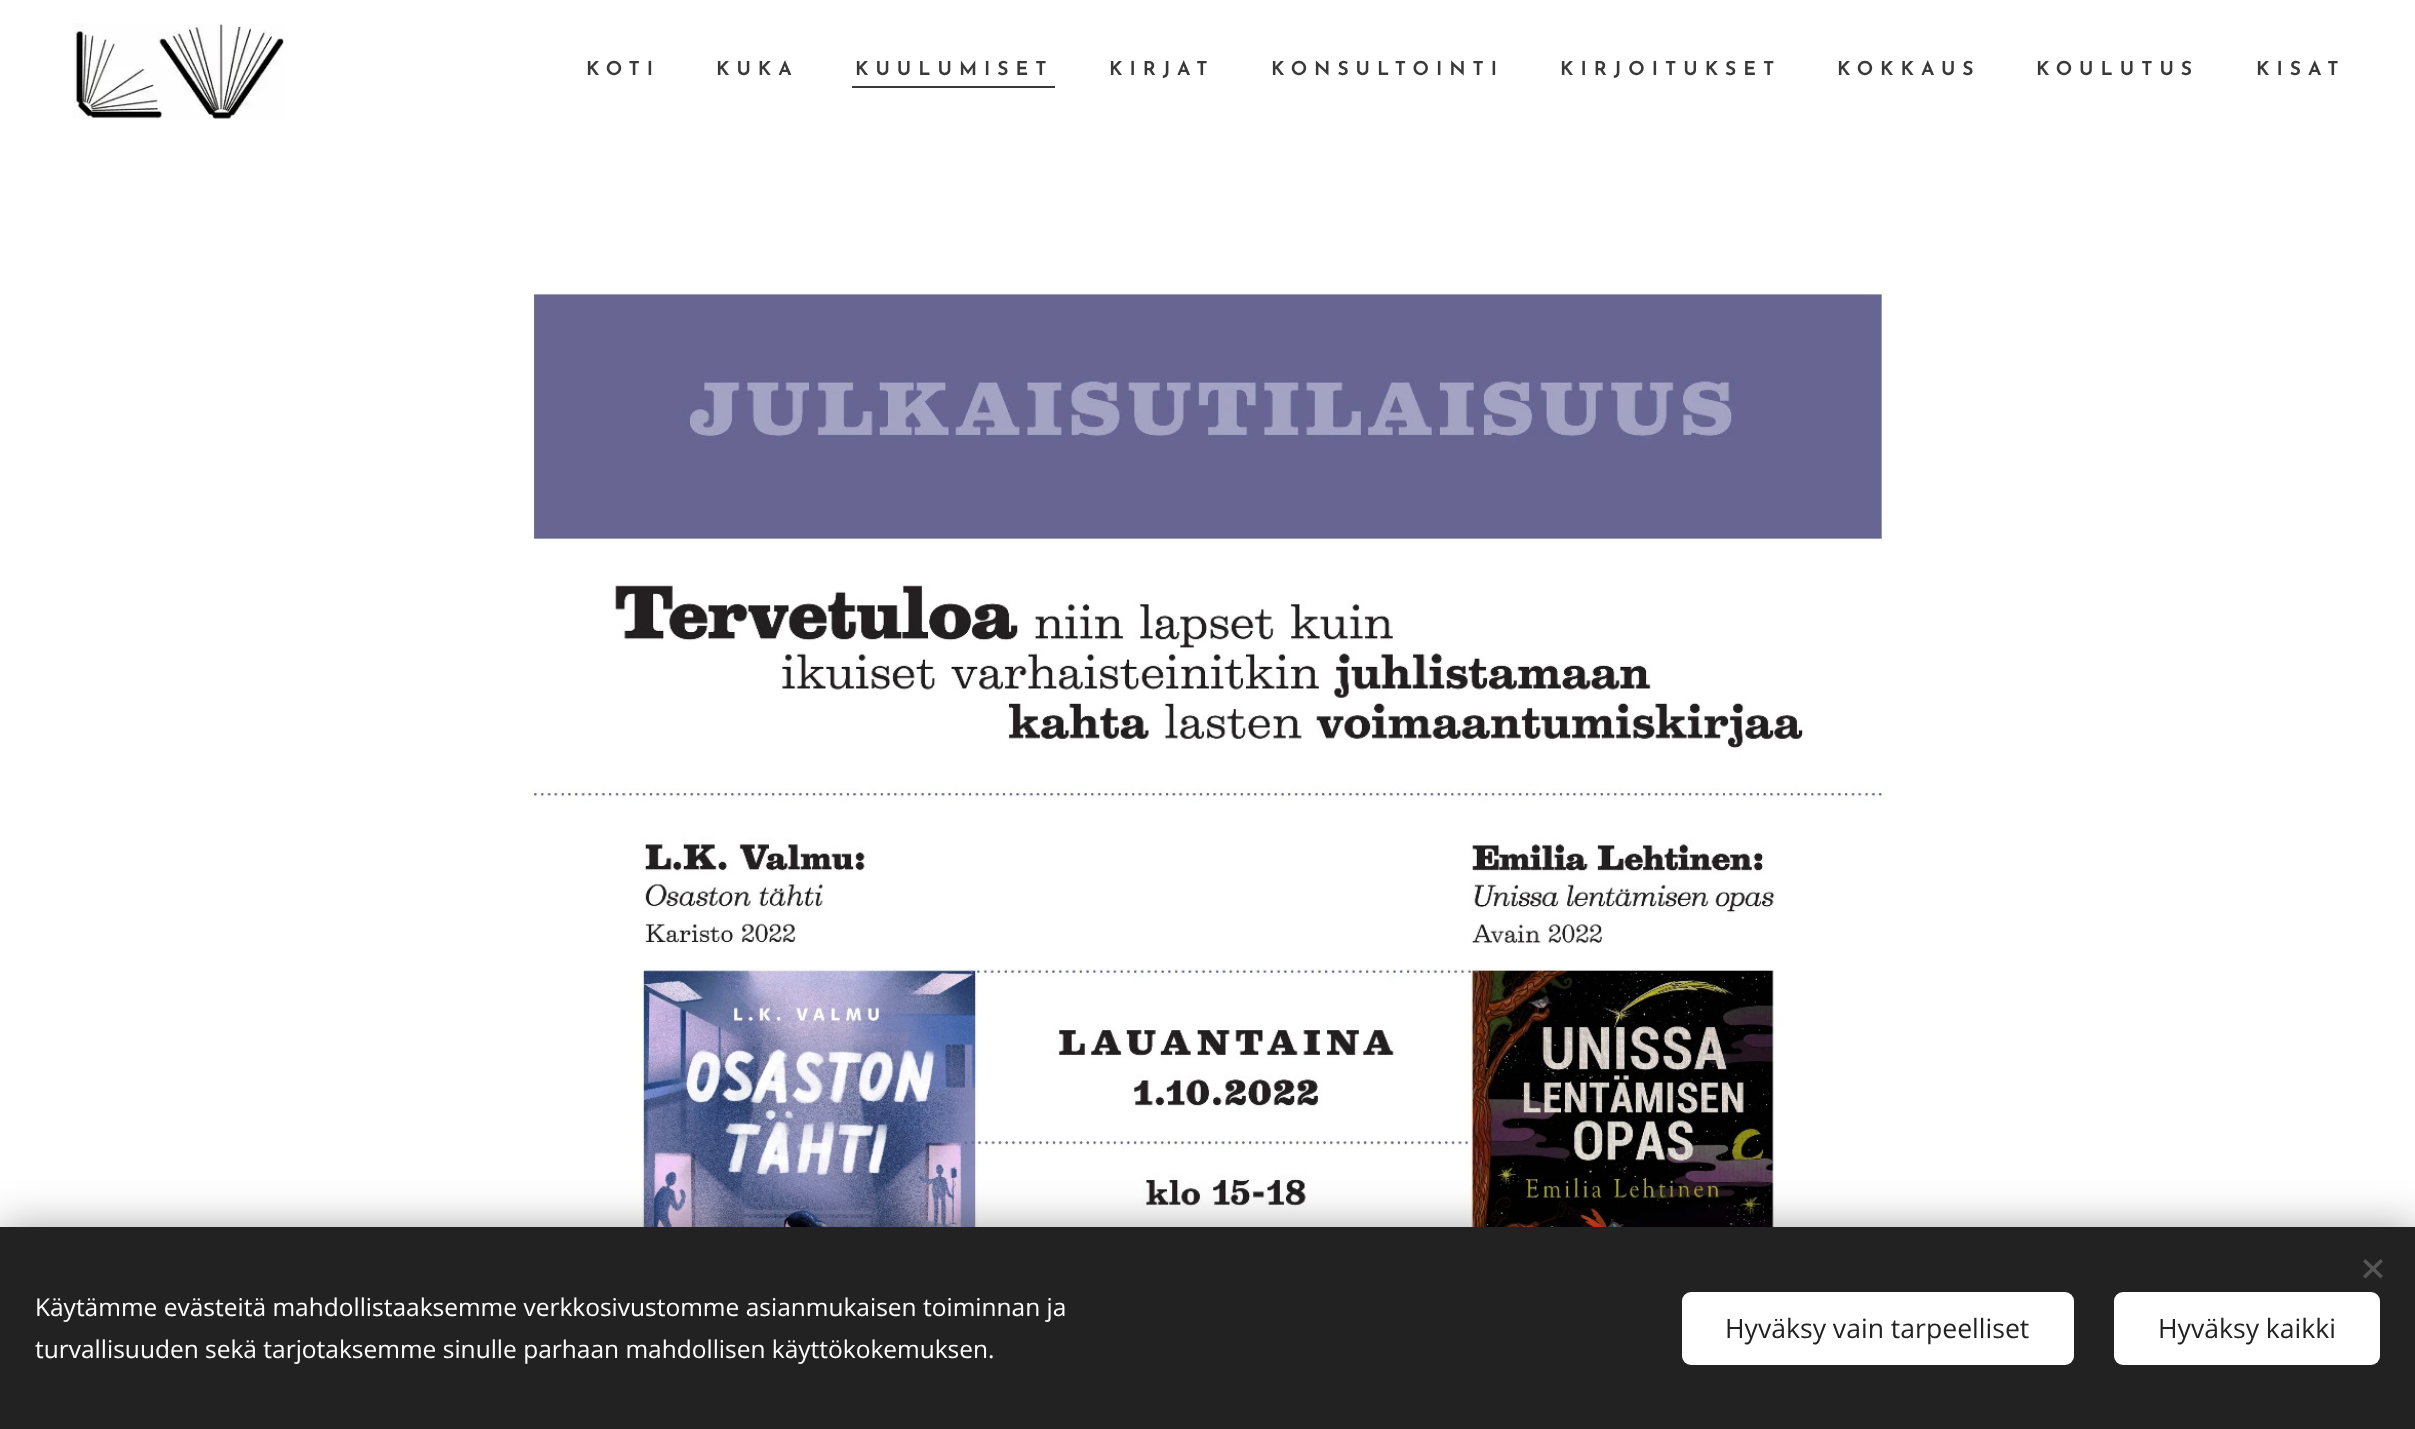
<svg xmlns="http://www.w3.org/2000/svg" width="2415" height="1429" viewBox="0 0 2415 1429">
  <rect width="100%" height="100%" fill="rgb(255,255,255)"/>
  <image x="73" y="23" width="211" height="96" href="pic1.png"/>
  <g font-family="Josefin Sans" font-size="19.25" font-weight="600" letter-spacing="7" fill="rgb(57,57,57)">
    <text x="586" y="75">KOTI</text>
    <text x="716" y="75">KUKA</text>
    <text x="855" y="75">KUULUMISET</text>
  </g>
  <rect x="852" y="86" width="203" height="2" fill="rgb(57,57,57)"/>
  <g font-family="Josefin Sans" font-size="19.25" font-weight="600" letter-spacing="7" fill="rgb(57,57,57)">
    <text x="1109" y="75">KIRJAT</text>
    <text x="1271" y="75">KONSULTOINTI</text>
    <text x="1560" y="75">KIRJOITUKSET</text>
    <text x="1837" y="75">KOKKAUS</text>
    <text x="2036" y="75">KOULUTUS</text>
    <text x="2256" y="75">KISAT</text>
  </g>
  <image x="528" y="288" width="1360" height="939" href="pic2.png"/>
  <rect x="0" y="1227" width="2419" height="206" fill="rgba(0,0,0,0.33)" filter="blur(22px)"/>
  <rect x="0" y="1227" width="2415" height="202" fill="rgb(34,34,34)"/>
  <path d="M2363 1276L2380.5 1259L2383 1261.5L2365.5 1278.5Z" fill="rgb(85,85,85)"/>
  <path d="M2365.5 1259L2383 1276L2380.5 1278.5L2363 1261.5Z" fill="rgb(85,85,85)"/>
  <g font-family="Open Sans" font-size="24.5" fill="rgb(255,255,255)">
    <text>
      <tspan x="35" y="1316">Käytämme evästeitä mahdollistaaksemme verkkosivustomme asianmukaisen toiminnan ja</tspan>
      <tspan x="35" y="1358">turvallisuuden sekä tarjotaksemme sinulle parhaan mahdollisen käyttökokemuksen.</tspan>
    </text>
  </g>
  <rect x="1682" y="1292" width="392" height="73" rx="9" fill="rgb(255,255,255)"/>
  <text x="1725" y="1338" font-family="Open Sans" font-size="26.6" fill="rgb(34,34,34)">Hyväksy vain tarpeelliset</text>
  <rect x="2114" y="1292" width="266" height="73" rx="9" fill="rgb(255,255,255)"/>
  <text x="2158" y="1338" font-family="Open Sans" font-size="26.6" fill="rgb(34,34,34)">Hyväksy kaikki</text>
</svg>
